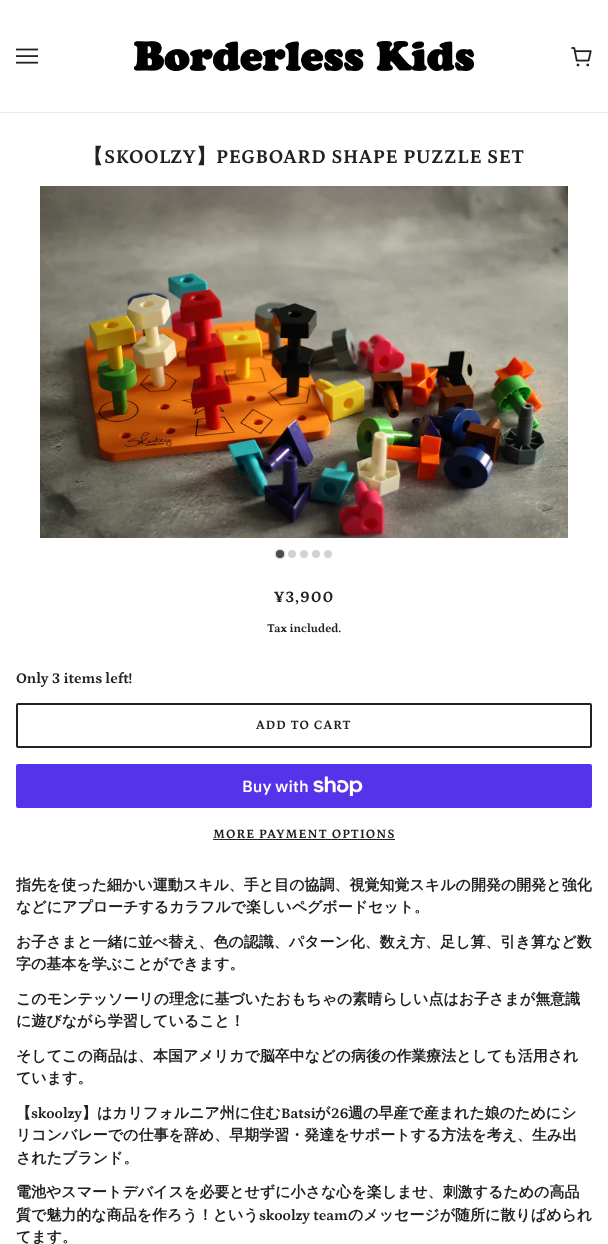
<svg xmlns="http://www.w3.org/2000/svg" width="608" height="1244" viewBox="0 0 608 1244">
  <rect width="100%" height="100%" fill="rgb(255,255,255)"/>
  <rect x="0" y="112" width="608" height="1" fill="rgb(234,234,234)"/>
  <image x="16" y="48" width="22" height="16" href="pic1.png"/>
  <image x="134" y="41" width="340" height="30" href="pic2.png"/>
  <image x="571" y="47" width="21" height="20" href="pic3.png"/>
  <text x="83" y="163" font-family="WenQuanYi Zen Hei" font-size="20" font-weight="bold" letter-spacing="0.5" fill="rgb(33,33,33)">【</text>
  <text x="104" y="163" font-family="Petrona" font-size="20" font-weight="bold" letter-spacing="0.5" fill="rgb(33,33,33)">SKOOLZY</text>
  <text x="196" y="163" font-family="WenQuanYi Zen Hei" font-size="20" font-weight="bold" letter-spacing="0.5" fill="rgb(33,33,33)">】</text>
  <text x="216" y="163" font-family="Petrona" font-size="20" font-weight="bold" letter-spacing="0.5" fill="rgb(33,33,33)">PEGBOARD SHAPE PUZZLE SET</text>
  <image x="40" y="186" width="528" height="352" href="pic4.png"/>
  <rect x="276" y="550" width="8" height="8" rx="4" fill="rgba(48,48,48,0.6)" filter="blur(1px)"/>
  <circle cx="280" cy="554" r="4" fill="rgb(75,75,75)"/>
  <circle cx="292" cy="554" r="4" fill="rgb(211,211,211)"/>
  <circle cx="304" cy="554" r="4" fill="rgb(211,211,211)"/>
  <circle cx="316" cy="554" r="4" fill="rgb(211,211,211)"/>
  <circle cx="328" cy="554" r="4" fill="rgb(211,211,211)"/>
  <text x="274" y="602" font-family="Petrona" font-size="16" font-weight="bold" letter-spacing="1" fill="rgb(33,33,33)">¥3,900</text>
  <text x="267" y="632" font-family="Petrona" font-size="12" font-weight="bold" fill="rgb(33,33,33)">Tax included.</text>
  <text x="16" y="683" font-family="Petrona" font-size="15" font-weight="bold" fill="rgb(33,33,33)">Only 3 items left!</text>
  <rect x="17" y="704" width="574" height="43" rx="1" fill="none" stroke="rgb(33,33,33)" stroke-width="2"/>
  <text x="256" y="729" font-family="Petrona" font-size="13" font-weight="bold" letter-spacing="1" fill="rgb(33,33,33)">ADD TO CART</text>
  <rect x="16" y="764" width="576" height="44" rx="2" fill="rgb(84,51,235)"/>
  <text x="242" y="792" font-family="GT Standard" font-size="16" font-weight="600" fill="rgb(255,255,255)">Buy with</text>
  <image x="313" y="776" width="50" height="20" href="pic5.png"/>
  <text x="213" y="838" font-family="Petrona" font-size="13" font-weight="bold" letter-spacing="1" fill="rgb(33,33,33)">MORE PAYMENT OPTIONS</text>
  <rect x="213" y="839" width="182" height="1" fill="rgb(33,33,33)"/>
  <g font-family="WenQuanYi Zen Hei" font-size="15" font-weight="bold" fill="rgb(33,33,33)">
    <text>
      <tspan x="16" y="890">指先を使った細かい運動スキル、手と目の協調、視覚知覚スキルの開発の開発と強化</tspan>
      <tspan x="16" y="912">などにアプローチするカラフルで楽しいペグボードセット。</tspan>
    </text>
    <text>
      <tspan x="16" y="947">お子さまと一緒に並べ替え、色の認識、パターン化、数え方、足し算、引き算など数</tspan>
      <tspan x="16" y="969">字の基本を学ぶことができます。</tspan>
    </text>
    <text>
      <tspan x="16" y="1004">このモンテッソーリの理念に基づいたおもちゃの素晴らしい点はお子さまが無意識</tspan>
      <tspan x="16" y="1026">に遊びながら学習していること！</tspan>
    </text>
    <text>
      <tspan x="16" y="1061">そしてこの商品は、本国アメリカで脳卒中などの病後の作業療法としても活用され</tspan>
      <tspan x="16" y="1083">ています。</tspan>
    </text>
    <text x="16" y="1118">【</text>
  </g>
  <text x="31" y="1118" font-family="Petrona" font-size="15" font-weight="bold" fill="rgb(33,33,33)">skoolzy</text>
  <text x="82" y="1118" font-family="WenQuanYi Zen Hei" font-size="15" font-weight="bold" fill="rgb(33,33,33)">】はカリフォルニア州に住む</text>
  <text x="281" y="1118" font-family="Petrona" font-size="15" font-weight="bold" fill="rgb(33,33,33)">Batsi</text>
  <text x="315" y="1118" font-family="WenQuanYi Zen Hei" font-size="15" font-weight="bold" fill="rgb(33,33,33)">が</text>
  <text x="331" y="1118" font-family="Petrona" font-size="15" font-weight="bold" fill="rgb(33,33,33)">26</text>
  <g font-family="WenQuanYi Zen Hei" font-size="15" font-weight="bold" fill="rgb(33,33,33)">
    <text x="348" y="1118">週の早産で産まれた娘のためにシ</text>
    <text>
      <tspan x="16" y="1140">リコンバレーでの仕事を辞め、早期学習・発達をサポートする方法を考え、生み出</tspan>
      <tspan x="16" y="1163">されたブランド。</tspan>
    </text>
    <text>
      <tspan x="16" y="1197">電池やスマートデバイスを必要とせずに小さな心を楽しませ、刺激するための高品</tspan>
      <tspan x="16" y="1220">質で魅力的な商品を作ろう！という</tspan>
    </text>
  </g>
  <text x="259" y="1220" font-family="Petrona" font-size="15" font-weight="bold" fill="rgb(33,33,33)">skoolzy team</text>
  <g font-family="WenQuanYi Zen Hei" font-size="15" font-weight="bold" fill="rgb(33,33,33)">
    <text x="348" y="1220">のメッセージが随所に散りばめられ</text>
    <text x="16" y="1242">てます。</text>
  </g>
</svg>
